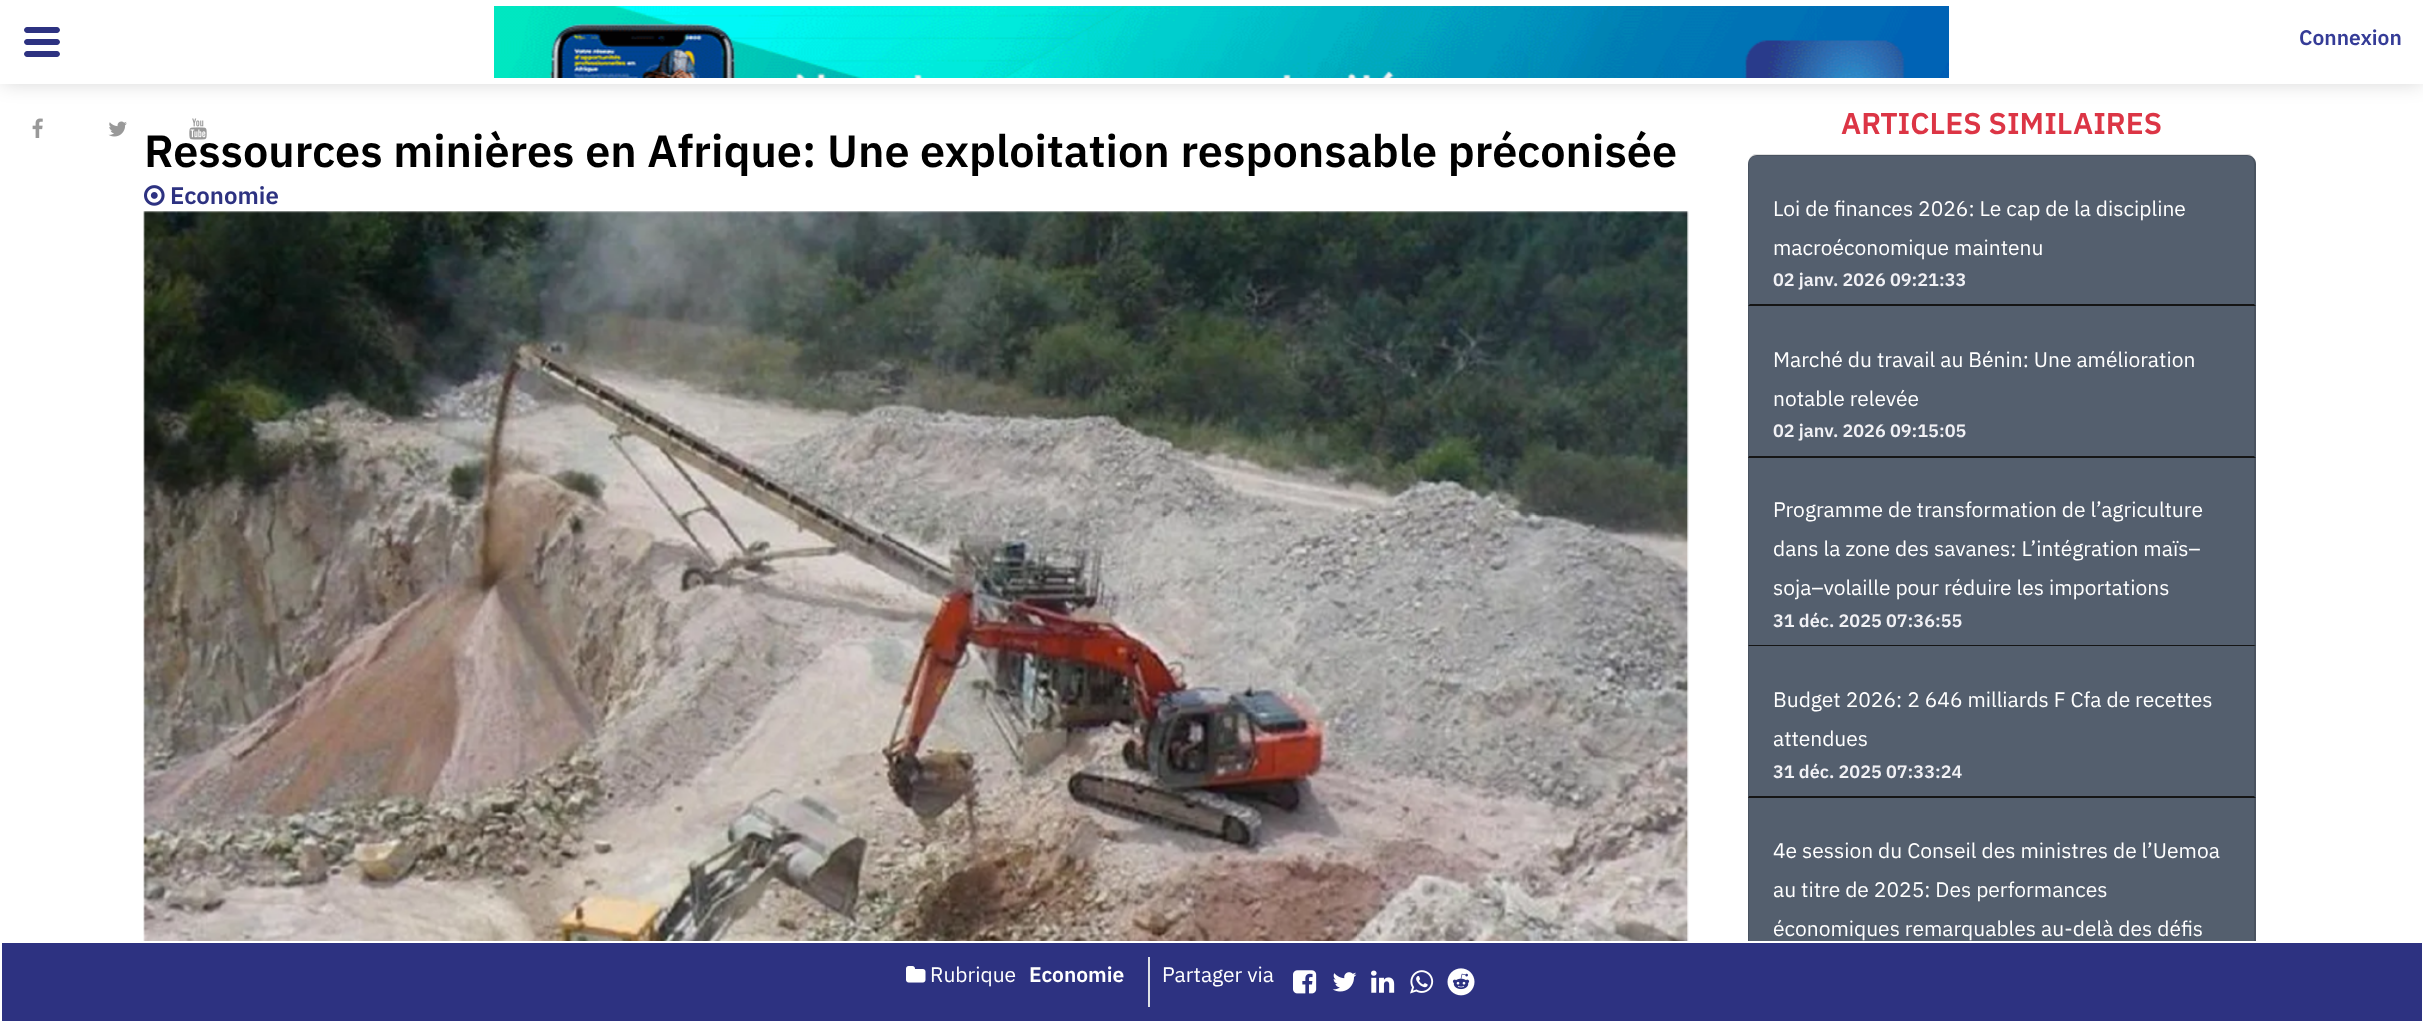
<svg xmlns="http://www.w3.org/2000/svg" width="2423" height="1022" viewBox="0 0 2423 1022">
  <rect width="100%" height="100%" fill="rgb(255,255,255)"/>
  <rect x="2" y="2" width="2421" height="81" fill="rgba(0,0,0,0.17)" filter="blur(10px)"/>
  <rect x="0" y="0" width="2423" height="84" fill="rgb(255,255,255)"/>
  <path d="M57 45H27C25.5 45 24 43.5 24 42C24 40.5 25.5 39 27 39H57C58.5 39 60 40.5 60 42C60 43.5 58.5 45 57 45ZM57 57H27C25.5 57 24 55.5 24 54C24 52.5 25.5 51 27 51H57C58.5 51 60 52.5 60 54C60 55.5 58.5 57 57 57ZM57 33H27C25.5 33 24 31.5 24 30C24 28.5 25.5 27 27 27H57C58.5 27 60 28.5 60 30C60 31.5 58.5 33 57 33Z" fill="rgb(45,50,129)"/>
  <image x="494" y="6" width="1455" height="72" href="pic1.png"/>
  <text x="2299" y="45" font-family="IBM Plex Sans" font-size="21" font-weight="600" fill="rgb(53,60,151)">Connexion</text>
  <image x="32" y="118" width="11" height="20" href="pic2.png"/>
  <image x="108" y="121" width="19" height="16" href="pic3.png"/>
  <image x="189" y="118" width="18" height="22" href="pic4.png"/>
  <text x="144" y="167" font-family="IBM Plex Sans" font-size="45" font-weight="600" fill="rgb(0,0,0)">Ressources minières en Afrique: Une exploitation responsable préconisée</text>
  <image x="144" y="185" width="21" height="21" href="pic5.png"/>
  <text x="170" y="204" font-family="IBM Plex Sans" font-size="24" font-weight="600" fill="rgb(45,50,129)">Economie</text>
  <image x="143" y="211" width="1546" height="730" href="pic6.png"/>
  <text x="1841" y="134" font-family="IBM Plex Sans" font-size="30" font-weight="600" fill="rgb(220,53,69)">ARTICLES SIMILAIRES</text>
  <path d="M1757 155H2247C2252 155 2256 159 2256 164V306H1748V164C1748 159 1752 155 1757 155Z" fill="rgb(84,95,110)"/>
  <path d="M1756 156C1754 156 1752 157 1751 158L1750 157L1754 154H2250L2253 157L2252 158C2251 157 2249 156 2247 156Z" fill="rgba(0,0,0,0.12)"/>
  <path d="M2256 306V164C2256 162 2255 159 2253 157L2252 158C2253 160 2254 162 2254 164V304Z" fill="rgba(0,0,0,0.12)"/>
  <path d="M2256 306L2254 304H1750L1748 306Z" fill="rgb(21,21,21)"/>
  <path d="M1748 306V164C1748 162 1749 159 1750 157L1751 158L1749 162V304H1750Z" fill="rgba(0,0,0,0.12)"/>
  <g font-family="IBM Plex Sans" font-size="21" fill="rgb(255,255,255)">
    <text>
      <tspan x="1773" y="216">Loi de finances 2026: Le cap de la discipline</tspan>
      <tspan x="1773" y="255">macroéconomique maintenu</tspan>
    </text>
  </g>
  <text x="1773" y="286" font-family="IBM Plex Sans" font-size="18" font-weight="600" fill="rgb(241,241,245)">02 janv. 2026 09:21:33</text>
  <rect x="1748" y="306" width="508" height="492" fill="rgb(84,95,110)"/>
  <path d="M2256 306V458L2254 456V306Z" fill="rgb(74,83,96)"/>
  <path d="M2256 458H1748L1749 456H2254Z" fill="rgb(21,21,21)"/>
  <path d="M1748 458V306H1749V456Z" fill="rgba(0,0,0,0.12)"/>
  <g font-family="IBM Plex Sans" font-size="21" fill="rgb(255,255,255)">
    <text>
      <tspan x="1773" y="367">Marché du travail au Bénin: Une amélioration</tspan>
      <tspan x="1773" y="406">notable relevée</tspan>
    </text>
  </g>
  <text x="1773" y="437" font-family="IBM Plex Sans" font-size="18" font-weight="600" fill="rgb(241,241,245)">02 janv. 2026 09:15:05</text>
  <path d="M2256 458V646L2254 645V458Z" fill="rgb(74,83,96)"/>
  <path d="M2256 646H1748L1749 645H2254Z" fill="rgb(21,21,21)"/>
  <path d="M1748 646V458H1749V645Z" fill="rgba(0,0,0,0.12)"/>
  <g font-family="IBM Plex Sans" font-size="21" fill="rgb(255,255,255)">
    <text>
      <tspan x="1773" y="517">Programme de transformation de l’agriculture</tspan>
      <tspan x="1773" y="556">dans la zone des savanes: L’intégration maïs–</tspan>
      <tspan x="1773" y="595">soja–volaille pour réduire les importations</tspan>
    </text>
  </g>
  <text x="1773" y="627" font-family="IBM Plex Sans" font-size="18" font-weight="600" fill="rgb(241,241,245)">31 déc. 2025 07:36:55</text>
  <path d="M2256 646V798L2254 796V646Z" fill="rgb(74,83,96)"/>
  <path d="M2256 798H1748L1749 796H2254Z" fill="rgb(21,21,21)"/>
  <path d="M1748 798V646H1749V796Z" fill="rgba(0,0,0,0.12)"/>
  <g font-family="IBM Plex Sans" font-size="21" fill="rgb(255,255,255)">
    <text>
      <tspan x="1773" y="707">Budget 2026: 2 646 milliards F Cfa de recettes</tspan>
      <tspan x="1773" y="746">attendues</tspan>
    </text>
  </g>
  <text x="1773" y="778" font-family="IBM Plex Sans" font-size="18" font-weight="600" fill="rgb(241,241,245)">31 déc. 2025 07:33:24</text>
  <rect x="1748" y="798" width="506" height="143" fill="rgb(84,95,110)"/>
  <path d="M2256 798V987L2254 986V798Z" fill="rgb(74,83,96)"/>
  <path d="M1748 987V798H1749V986Z" fill="rgba(0,0,0,0.12)"/>
  <g font-family="IBM Plex Sans" font-size="21" fill="rgb(255,255,255)">
    <text>
      <tspan x="1773" y="858">4e session du Conseil des ministres de l’Uemoa</tspan>
      <tspan x="1773" y="897">au titre de 2025: Des performances</tspan>
      <tspan x="1773" y="936">économiques remarquables au-delà des défis</tspan>
    </text>
  </g>
  <rect x="1" y="942" width="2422" height="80" fill="rgb(45,50,129)" stroke="rgb(255,255,255)" stroke-width="2"/>
  <rect x="1148" y="957" width="2" height="50" fill="rgb(222,226,230)"/>
  <image x="906" y="966" width="20" height="17" href="pic7.png"/>
  <text x="930" y="982" font-family="IBM Plex Sans" font-size="21" fill="rgb(255,255,255)">Rubrique</text>
  <text x="1029" y="982" font-family="IBM Plex Sans" font-size="21" font-weight="600" fill="rgb(255,255,255)">Economie</text>
  <text x="1162" y="982" font-family="IBM Plex Sans" font-size="21" fill="rgb(255,255,255)">Partager via</text>
  <image x="1293" y="970" width="24" height="24" href="pic8.png"/>
  <image x="1332" y="972" width="25" height="20" href="pic9.png"/>
  <image x="1371" y="970" width="24" height="23" href="pic10.png"/>
  <image x="1410" y="970" width="24" height="24" href="pic11.png"/>
  <image x="1447" y="968" width="28" height="28" href="pic12.png"/>
</svg>
